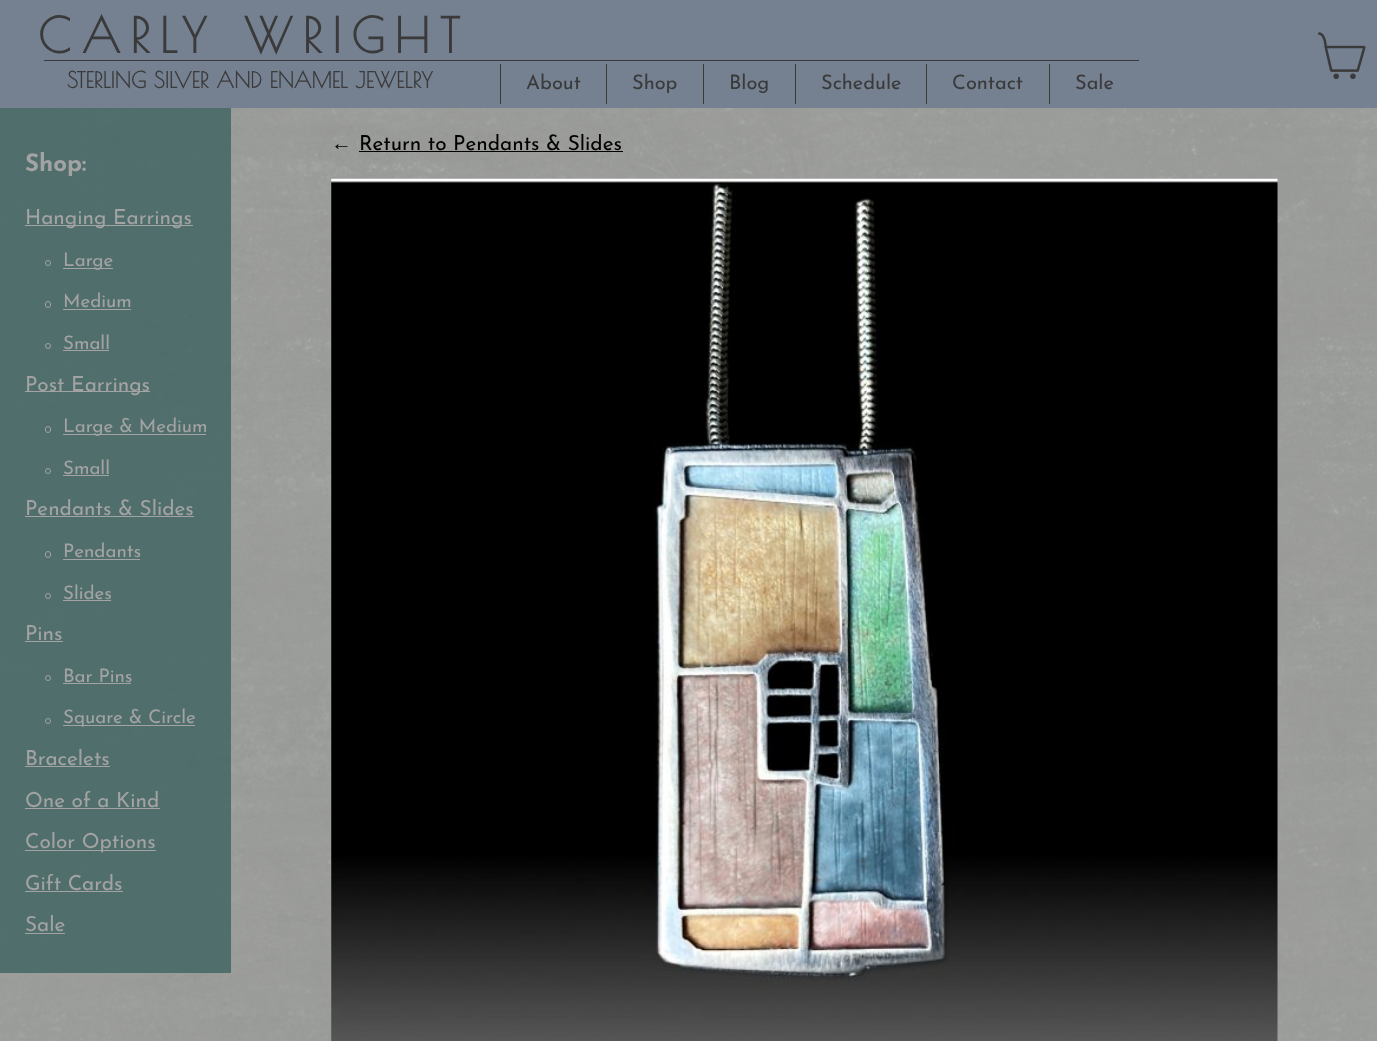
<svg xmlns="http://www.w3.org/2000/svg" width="1377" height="1041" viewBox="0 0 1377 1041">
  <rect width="100%" height="100%" fill="rgb(255,255,255)"/>
  <image x="0" y="108" width="1377" height="933" href="pic1.png"/>
  <rect x="0" y="0" width="1377" height="108" fill="rgb(117,128,145)"/>
  <text x="38" y="53" font-family="Poiret One" font-size="48" font-weight="bold" letter-spacing="10" fill="rgb(58,58,58)">CARLY WRIGHT</text>
  <text x="67" y="88" font-family="Poiret One" font-size="22" font-weight="bold" fill="rgb(58,58,58)">STERLING SILVER AND ENAMEL JEWELRY</text>
  <image x="1318" y="32" width="48" height="47" href="pic2.png"/>
  <rect x="44" y="60" width="1095" height="1" fill="rgb(58,58,58)"/>
  <rect x="500" y="64" width="1" height="40" fill="rgb(58,58,58)"/>
  <text x="526" y="89" font-family="Josefin Sans" font-size="20" fill="rgb(58,58,58)">About</text>
  <rect x="606" y="64" width="1" height="40" fill="rgb(58,58,58)"/>
  <text x="632" y="89" font-family="Josefin Sans" font-size="20" fill="rgb(58,58,58)">Shop</text>
  <rect x="703" y="64" width="1" height="40" fill="rgb(58,58,58)"/>
  <text x="729" y="89" font-family="Josefin Sans" font-size="20" fill="rgb(58,58,58)">Blog</text>
  <rect x="795" y="64" width="1" height="40" fill="rgb(58,58,58)"/>
  <text x="821" y="89" font-family="Josefin Sans" font-size="20" fill="rgb(58,58,58)">Schedule</text>
  <rect x="926" y="64" width="1" height="40" fill="rgb(58,58,58)"/>
  <text x="952" y="89" font-family="Josefin Sans" font-size="20" fill="rgb(58,58,58)">Contact</text>
  <rect x="1049" y="64" width="1" height="40" fill="rgb(58,58,58)"/>
  <text x="1075" y="89" font-family="Josefin Sans" font-size="20" fill="rgb(58,58,58)">Sale</text>
  <text x="331" y="150" font-family="Liberation Sans" font-size="20.75" fill="rgb(0,0,0)">←</text>
  <text x="359" y="150" font-family="Josefin Sans" font-size="20.75" fill="rgb(0,0,0)">Return to Pendants &amp; Slides</text>
  <rect x="359" y="151" width="264" height="1" fill="rgb(0,0,0)"/>
  <image x="331" y="178" width="947" height="863" href="pic3.png"/>
  <rect x="0" y="108" width="231" height="865" fill="rgba(61,99,96,0.8)"/>
  <text x="25" y="171" font-family="Josefin Sans" font-size="24" font-weight="bold" fill="rgb(163,163,163)">Shop:</text>
  <rect x="25" y="225" width="168" height="1" fill="rgb(163,163,163)"/>
  <text x="25" y="224" font-family="Josefin Sans" font-size="20.75" fill="rgb(163,163,163)">Hanging Earrings</text>
  <circle cx="48" cy="263" r="2.5" fill="none" stroke="rgb(163,163,163)"/>
  <rect x="63" y="268" width="50" height="1" fill="rgb(163,163,163)"/>
  <text x="63" y="266" font-family="Josefin Sans" font-size="18.75" fill="rgb(163,163,163)">Large</text>
  <rect x="45.5" y="301.5" width="5" height="6" rx="2.5" fill="none" stroke="rgb(163,163,163)"/>
  <text x="63" y="307" font-family="Josefin Sans" font-size="18.75" fill="rgb(163,163,163)">Medium</text>
  <rect x="63" y="309" width="68" height="1" fill="rgb(163,163,163)"/>
  <circle cx="48" cy="346" r="2.5" fill="none" stroke="rgb(163,163,163)"/>
  <text x="63" y="349" font-family="Josefin Sans" font-size="18.75" fill="rgb(163,163,163)">Small</text>
  <rect x="63" y="350" width="46" height="1" fill="rgb(163,163,163)"/>
  <rect x="25" y="391" width="125" height="1" fill="rgb(163,163,163)"/>
  <text x="25" y="391" font-family="Josefin Sans" font-size="20.75" fill="rgb(163,163,163)">Post Earrings</text>
  <rect x="45.5" y="426.5" width="5" height="6" rx="2.5" fill="none" stroke="rgb(163,163,163)"/>
  <rect x="63" y="434" width="143" height="1" fill="rgb(163,163,163)"/>
  <text x="63" y="432" font-family="Josefin Sans" font-size="18.75" fill="rgb(163,163,163)">Large &amp; Medium</text>
  <circle cx="48" cy="471" r="2.5" fill="none" stroke="rgb(163,163,163)"/>
  <text x="63" y="474" font-family="Josefin Sans" font-size="18.75" fill="rgb(163,163,163)">Small</text>
  <rect x="63" y="475" width="46" height="1" fill="rgb(163,163,163)"/>
  <text x="25" y="515" font-family="Josefin Sans" font-size="20.75" fill="rgb(163,163,163)">Pendants &amp; Slides</text>
  <rect x="25" y="516" width="169" height="1" fill="rgb(163,163,163)"/>
  <rect x="45.5" y="551.5" width="5" height="6" rx="2.5" fill="none" stroke="rgb(163,163,163)"/>
  <text x="63" y="557" font-family="Josefin Sans" font-size="18.75" fill="rgb(163,163,163)">Pendants</text>
  <rect x="63" y="559" width="77" height="1" fill="rgb(163,163,163)"/>
  <circle cx="48" cy="596" r="2.5" fill="none" stroke="rgb(163,163,163)"/>
  <text x="63" y="599" font-family="Josefin Sans" font-size="18.75" fill="rgb(163,163,163)">Slides</text>
  <rect x="63" y="600" width="48" height="1" fill="rgb(163,163,163)"/>
  <text x="25" y="640" font-family="Josefin Sans" font-size="20.75" fill="rgb(163,163,163)">Pins</text>
  <rect x="25" y="641" width="38" height="1" fill="rgb(163,163,163)"/>
  <circle cx="48" cy="678" r="2.5" fill="none" stroke="rgb(163,163,163)"/>
  <text x="63" y="682" font-family="Josefin Sans" font-size="18.75" fill="rgb(163,163,163)">Bar Pins</text>
  <rect x="63" y="683" width="68" height="1" fill="rgb(163,163,163)"/>
  <circle cx="48" cy="721" r="2.5" fill="none" stroke="rgb(163,163,163)"/>
  <rect x="63" y="725" width="132" height="1" fill="rgb(163,163,163)"/>
  <text x="63" y="723" font-family="Josefin Sans" font-size="18.75" fill="rgb(163,163,163)">Square &amp; Circle</text>
  <text x="25" y="765" font-family="Josefin Sans" font-size="20.75" fill="rgb(163,163,163)">Bracelets</text>
  <rect x="25" y="766" width="85" height="1" fill="rgb(163,163,163)"/>
  <text x="25" y="807" font-family="Josefin Sans" font-size="20.75" fill="rgb(163,163,163)">One of a Kind</text>
  <rect x="25" y="808" width="135" height="1" fill="rgb(163,163,163)"/>
  <rect x="25" y="850" width="131" height="1" fill="rgb(163,163,163)"/>
  <g font-family="Josefin Sans" font-size="20.75" fill="rgb(163,163,163)">
    <text x="25" y="848">Color Options</text>
    <text x="25" y="890">Gift Cards</text>
  </g>
  <rect x="25" y="891" width="98" height="1" fill="rgb(163,163,163)"/>
  <text x="25" y="931" font-family="Josefin Sans" font-size="20.75" fill="rgb(163,163,163)">Sale</text>
  <rect x="25" y="933" width="40" height="1" fill="rgb(163,163,163)"/>
</svg>
